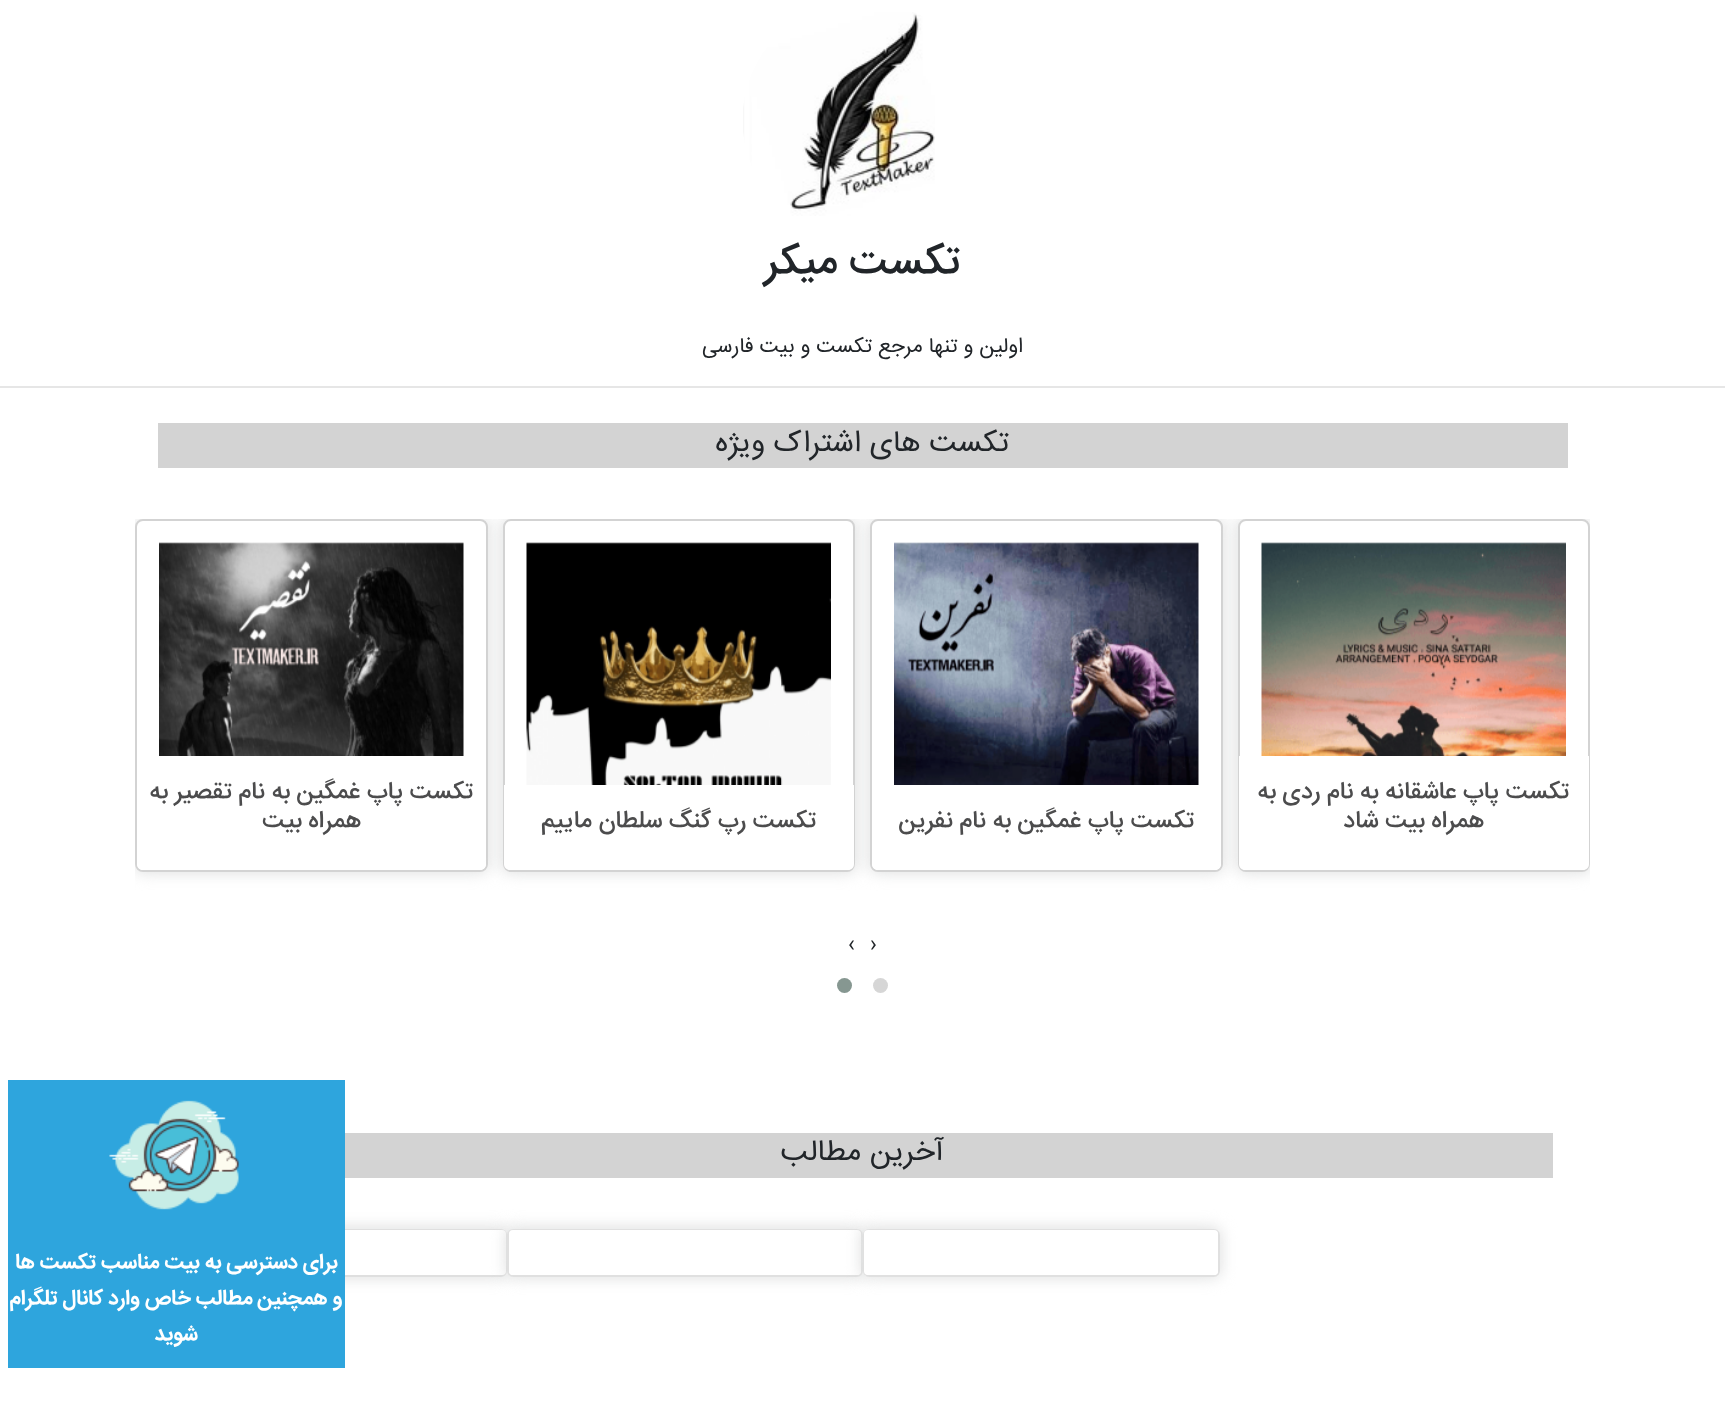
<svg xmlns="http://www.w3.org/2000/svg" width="1725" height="1405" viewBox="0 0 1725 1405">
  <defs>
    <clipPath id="clip1"><rect x="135" y="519" width="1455" height="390"/></clipPath>
  </defs>
  <rect width="100%" height="100%" fill="rgb(255,255,255)"/>
  <image x="743" y="12" width="192" height="204" href="pic1.png"/>
  <text x="960" y="273" font-family="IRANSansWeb" font-size="42" font-weight="500" direction="rtl" fill="rgb(33,37,41)">تکست میکر</text>
  <text x="1023" y="352" font-family="IRANSansWeb" font-size="21" direction="rtl" fill="rgb(33,37,41)">اولین و تنها مرجع تکست و بیت فارسی</text>
  <rect x="0" y="386" width="1725" height="2" fill="rgb(230,230,230)"/>
  <rect x="158" y="423" width="1410" height="45" fill="rgb(211,211,211)"/>
  <text x="1009" y="451" font-family="IRANSansWeb" font-size="30" direction="rtl" fill="rgb(33,37,41)">تکست های اشتراک ویژه</text>
  <g clip-path="url(#clip1)">
    <rect x="134" y="518" width="355" height="355" rx="9" fill="rgb(223,224,224)" filter="blur(7.5px)"/>
  </g>
  <rect x="136" y="520" width="351" height="351" rx="7" fill="rgb(255,255,255)" stroke="rgb(211,211,211)" stroke-width="2"/>
  <path d="M137 756H486V864C486 867.5 483.5 870 480 870H143C139.5 870 137 867.5 137 864Z" fill="rgb(255,255,255)"/>
  <g clip-path="url(#clip1)">
    <rect x="501" y="518" width="356" height="355" rx="9" fill="rgb(223,224,224)" filter="blur(7.5px)"/>
  </g>
  <rect x="504" y="520" width="350" height="351" rx="7" fill="rgb(255,255,255)" stroke="rgb(211,211,211)" stroke-width="2"/>
  <path d="M504 785H854V864C854 867.5 851.5 870 848 870H510C506.5 870 504 867.5 504 864Z" fill="rgb(255,255,255)"/>
  <g clip-path="url(#clip1)">
    <rect x="869" y="518" width="355" height="355" rx="9" fill="rgb(223,224,224)" filter="blur(7.5px)"/>
  </g>
  <rect x="871" y="520" width="351" height="351" rx="7" fill="rgb(255,255,255)" stroke="rgb(211,211,211)" stroke-width="2"/>
  <path d="M872 785H1221V864C1221 867.5 1218.5 870 1215 870H878C874.5 870 872 867.5 872 864Z" fill="rgb(255,255,255)"/>
  <g clip-path="url(#clip1)">
    <rect x="1236" y="518" width="356" height="355" rx="9" fill="rgb(223,224,224)" filter="blur(7.5px)"/>
  </g>
  <rect x="1239" y="520" width="350" height="351" rx="7" fill="rgb(255,255,255)" stroke="rgb(211,211,211)" stroke-width="2"/>
  <image x="1261" y="542" width="305" height="214" href="pic2.png"/>
  <path d="M1239 756H1589V864C1589 867.5 1586.5 870 1583 870H1245C1241.5 870 1239 867.5 1239 864Z" fill="rgb(255,255,255)"/>
  <g font-family="IRANSansWeb" font-size="24" font-weight="500" direction="rtl" fill="rgb(76,76,77)">
    <text x="1569" y="798">تکست پاپ عاشقانه به نام ردی به</text>
    <text x="1484" y="827">همراه بیت شاد</text>
  </g>
  <image x="894" y="542" width="305" height="243" href="pic3.png"/>
  <text x="1194" y="827" font-family="IRANSansWeb" font-size="24" font-weight="500" direction="rtl" fill="rgb(76,76,77)">تکست پاپ غمگین به نام نفرین</text>
  <image x="526" y="542" width="305" height="243" href="pic4.png"/>
  <text x="816" y="827" font-family="IRANSansWeb" font-size="24" font-weight="500" direction="rtl" fill="rgb(76,76,77)">تکست رپ گنگ سلطان ماییم</text>
  <image x="159" y="542" width="305" height="214" href="pic5.png"/>
  <g font-family="IRANSansWeb" font-size="24" font-weight="500" direction="rtl" fill="rgb(76,76,77)">
    <text x="473" y="798">تکست پاپ غمگین به نام تقصیر به</text>
    <text x="361" y="827">همراه بیت</text>
  </g>
  <g font-family="IRANSansWeb" font-size="21" fill="rgb(33,37,41)">
    <text x="870" y="950">›</text>
    <text x="848" y="950">‹</text>
  </g>
  <circle cx="880.5" cy="985.5" r="7.5" fill="rgb(214,214,214)"/>
  <circle cx="844.5" cy="985.5" r="7.5" fill="rgb(134,151,145)"/>
  <rect x="345" y="1133" width="1208" height="45" fill="rgb(211,211,211)"/>
  <text x="944" y="1160" font-family="IRANSansWeb" font-size="30" direction="rtl" fill="rgb(33,37,41)">آخرین مطالب</text>
  <rect x="149" y="1227" width="360" height="51" rx="8" fill="rgb(223,224,224)" filter="blur(7.5px)"/>
  <rect x="151" y="1230" width="355" height="46" rx="5" fill="none" stroke="rgb(223,223,223)" stroke-width="2"/>
  <rect x="152" y="1230" width="354" height="45" rx="4" fill="rgb(255,255,255)"/>
  <rect x="506" y="1227" width="358" height="51" rx="8" fill="rgb(223,224,224)" filter="blur(7.5px)"/>
  <rect x="507" y="1229" width="356" height="48" rx="6" fill="rgb(255,255,255)"/>
  <rect x="508" y="1230" width="354" height="46" rx="5" fill="none" stroke="rgba(0,0,0,0.12)" stroke-width="2"/>
  <rect x="509" y="1230" width="352" height="45" rx="4" fill="rgb(255,255,255)"/>
  <rect x="861" y="1227" width="360" height="51" rx="8" fill="rgb(223,224,224)" filter="blur(7.5px)"/>
  <rect x="863" y="1229" width="357" height="48" rx="6" fill="rgb(255,255,255)"/>
  <rect x="864" y="1230" width="355" height="46" rx="5" fill="none" stroke="rgba(0,0,0,0.12)" stroke-width="2"/>
  <rect x="864" y="1230" width="354" height="45" rx="4" fill="rgb(255,255,255)"/>
  <rect x="8" y="1080" width="337" height="288" fill="rgb(46,165,221)"/>
  <image x="109" y="1100" width="130" height="110" href="pic6.png"/>
  <g font-family="IRANSansWeb" font-size="21" font-weight="bold" direction="rtl" fill="rgb(255,255,255)">
    <text x="338" y="1268">برای دسترسی به بیت مناسب تکست ها</text>
    <text x="342" y="1304">و همچنین مطالب خاص وارد کانال تلگرام</text>
    <text x="198" y="1340">شوید</text>
  </g>
</svg>
